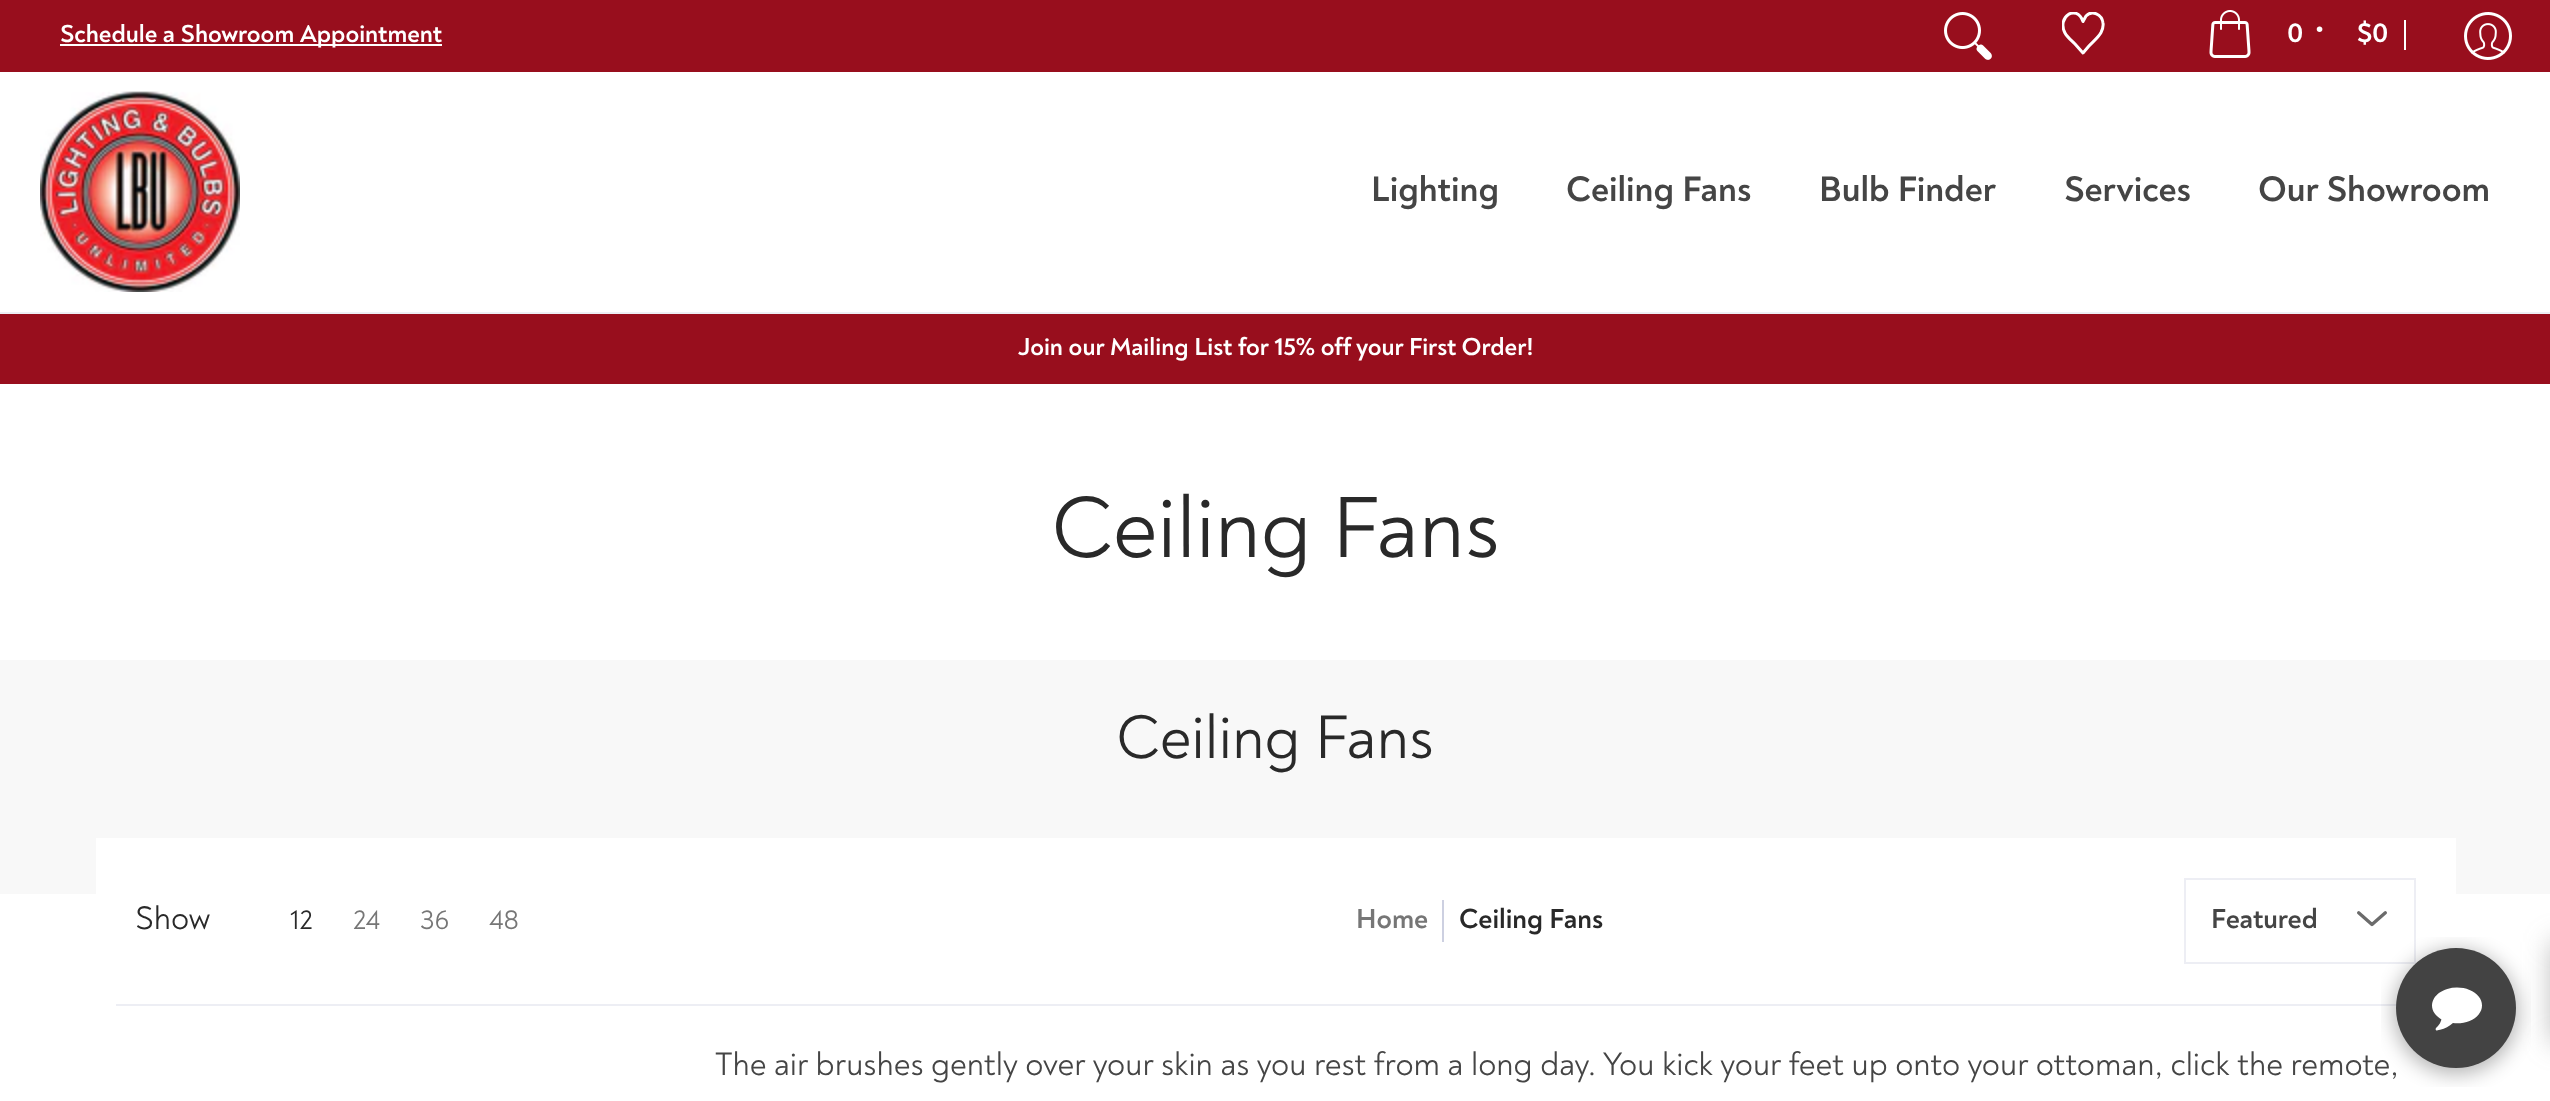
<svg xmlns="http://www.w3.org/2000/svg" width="2550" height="1101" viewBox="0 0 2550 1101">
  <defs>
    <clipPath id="clip1"><rect x="2062" y="12" width="48" height="48"/></clipPath>
  </defs>
  <rect width="100%" height="100%" fill="rgb(255,255,255)"/>
  <rect x="0" y="0" width="2550" height="72" fill="rgb(152,14,29)"/>
  <rect x="60" y="44" width="382" height="2" fill="rgb(255,255,255)"/>
  <text x="60" y="42" font-family="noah" font-size="25" font-weight="bold" fill="rgb(255,255,255)">Schedule a Showroom Appointment</text>
  <image x="1944" y="12" width="48" height="48" href="pic1.png"/>
  <g clip-path="url(#clip1)">
    <path d="M2083 21.5C2076.5 3.5 2056.5 17 2065 33C2067.5 37.5 2071.5 40.5 2075 44L2083 53L2088.5 46.5C2092.5 42 2098 38 2101 32.5C2102.5 29.5 2103.5 26 2103 23C2102 14.5 2092 9.5 2086 16Z" fill="none" stroke="rgb(255,255,255)" stroke-width="3" stroke-linecap="round" stroke-linejoin="round"/>
  </g>
  <image x="2209" y="10" width="42" height="48" href="pic2.png"/>
  <g font-family="noah" font-size="28" font-weight="bold" fill="rgb(255,255,255)">
    <text x="2287" y="42">0</text>
    <text x="2315" y="39">•</text>
    <text x="2357" y="42">$0</text>
  </g>
  <rect x="2404" y="20" width="2" height="30" fill="rgb(255,255,255)"/>
  <image x="2464" y="12" width="48" height="48" href="pic3.png"/>
  <rect x="0" y="312" width="2550" height="2" fill="rgb(237,238,244)"/>
  <image x="40" y="91" width="200" height="201" href="pic4.png"/>
  <g font-family="noah" font-size="36" font-weight="bold" fill="rgb(69,69,69)">
    <text x="1371" y="201">Lighting</text>
    <text x="1566" y="201">Ceiling Fans</text>
    <text x="1819" y="201">Bulb Finder</text>
    <text x="2064" y="201">Services</text>
    <text x="2258" y="201">Our Showroom</text>
  </g>
  <rect x="0" y="314" width="2550" height="70" fill="rgb(152,14,29)"/>
  <text x="1018" y="355" font-family="noah" font-size="25" font-weight="bold" fill="rgb(255,255,255)">Join our Mailing List for 15% off your First Order!</text>
  <text x="1051" y="557" font-family="noah" font-size="88.25" fill="rgb(41,41,41)">Ceiling Fans</text>
  <rect x="0" y="660" width="2550" height="234" fill="rgb(248,248,248)"/>
  <text x="1116" y="758" font-family="noah" font-size="62.5" fill="rgb(41,41,41)">Ceiling Fans</text>
  <rect x="96" y="838" width="2360" height="56" fill="rgb(255,255,255)"/>
  <rect x="116" y="1004" width="2281" height="2" fill="rgb(237,238,244)"/>
  <text x="135" y="929" font-family="noah" font-size="33.08" fill="rgb(41,41,41)">Show</text>
  <text x="290" y="929" font-family="noah" font-size="28" fill="rgb(41,41,41)">12</text>
  <g font-family="noah" font-size="28" fill="rgb(118,118,118)">
    <text x="353" y="929">24</text>
    <text x="420" y="929">36</text>
    <text x="489" y="929">48</text>
  </g>
  <text x="1356" y="928" font-family="noah" font-size="28" font-weight="bold" fill="rgb(118,118,118)">Home</text>
  <rect x="1442" y="900" width="2" height="42" fill="rgb(205,208,225)"/>
  <text x="1459" y="928" font-family="noah" font-size="28" font-weight="bold" fill="rgb(41,41,41)">Ceiling Fans</text>
  <image x="2357" y="911" width="30" height="16" href="pic5.png"/>
  <rect x="2185" y="879" width="230" height="84" fill="none" stroke="rgb(237,238,244)" stroke-width="2"/>
  <text x="2211" y="928" font-family="noah" font-size="28" font-weight="bold" fill="rgb(69,69,69)">Featured</text>
  <text x="715" y="1075" font-family="noah" font-size="33.08" fill="rgb(69,69,69)">The air brushes gently over your skin as you rest from a long day. You kick your feet up onto your ottoman, click the remote,</text>
  <rect x="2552" y="942" width="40" height="100" fill="rgba(117,117,117,0.5)" filter="blur(14px)"/>
  <image x="2381" y="937" width="150" height="150" href="pic6.png"/>
</svg>
